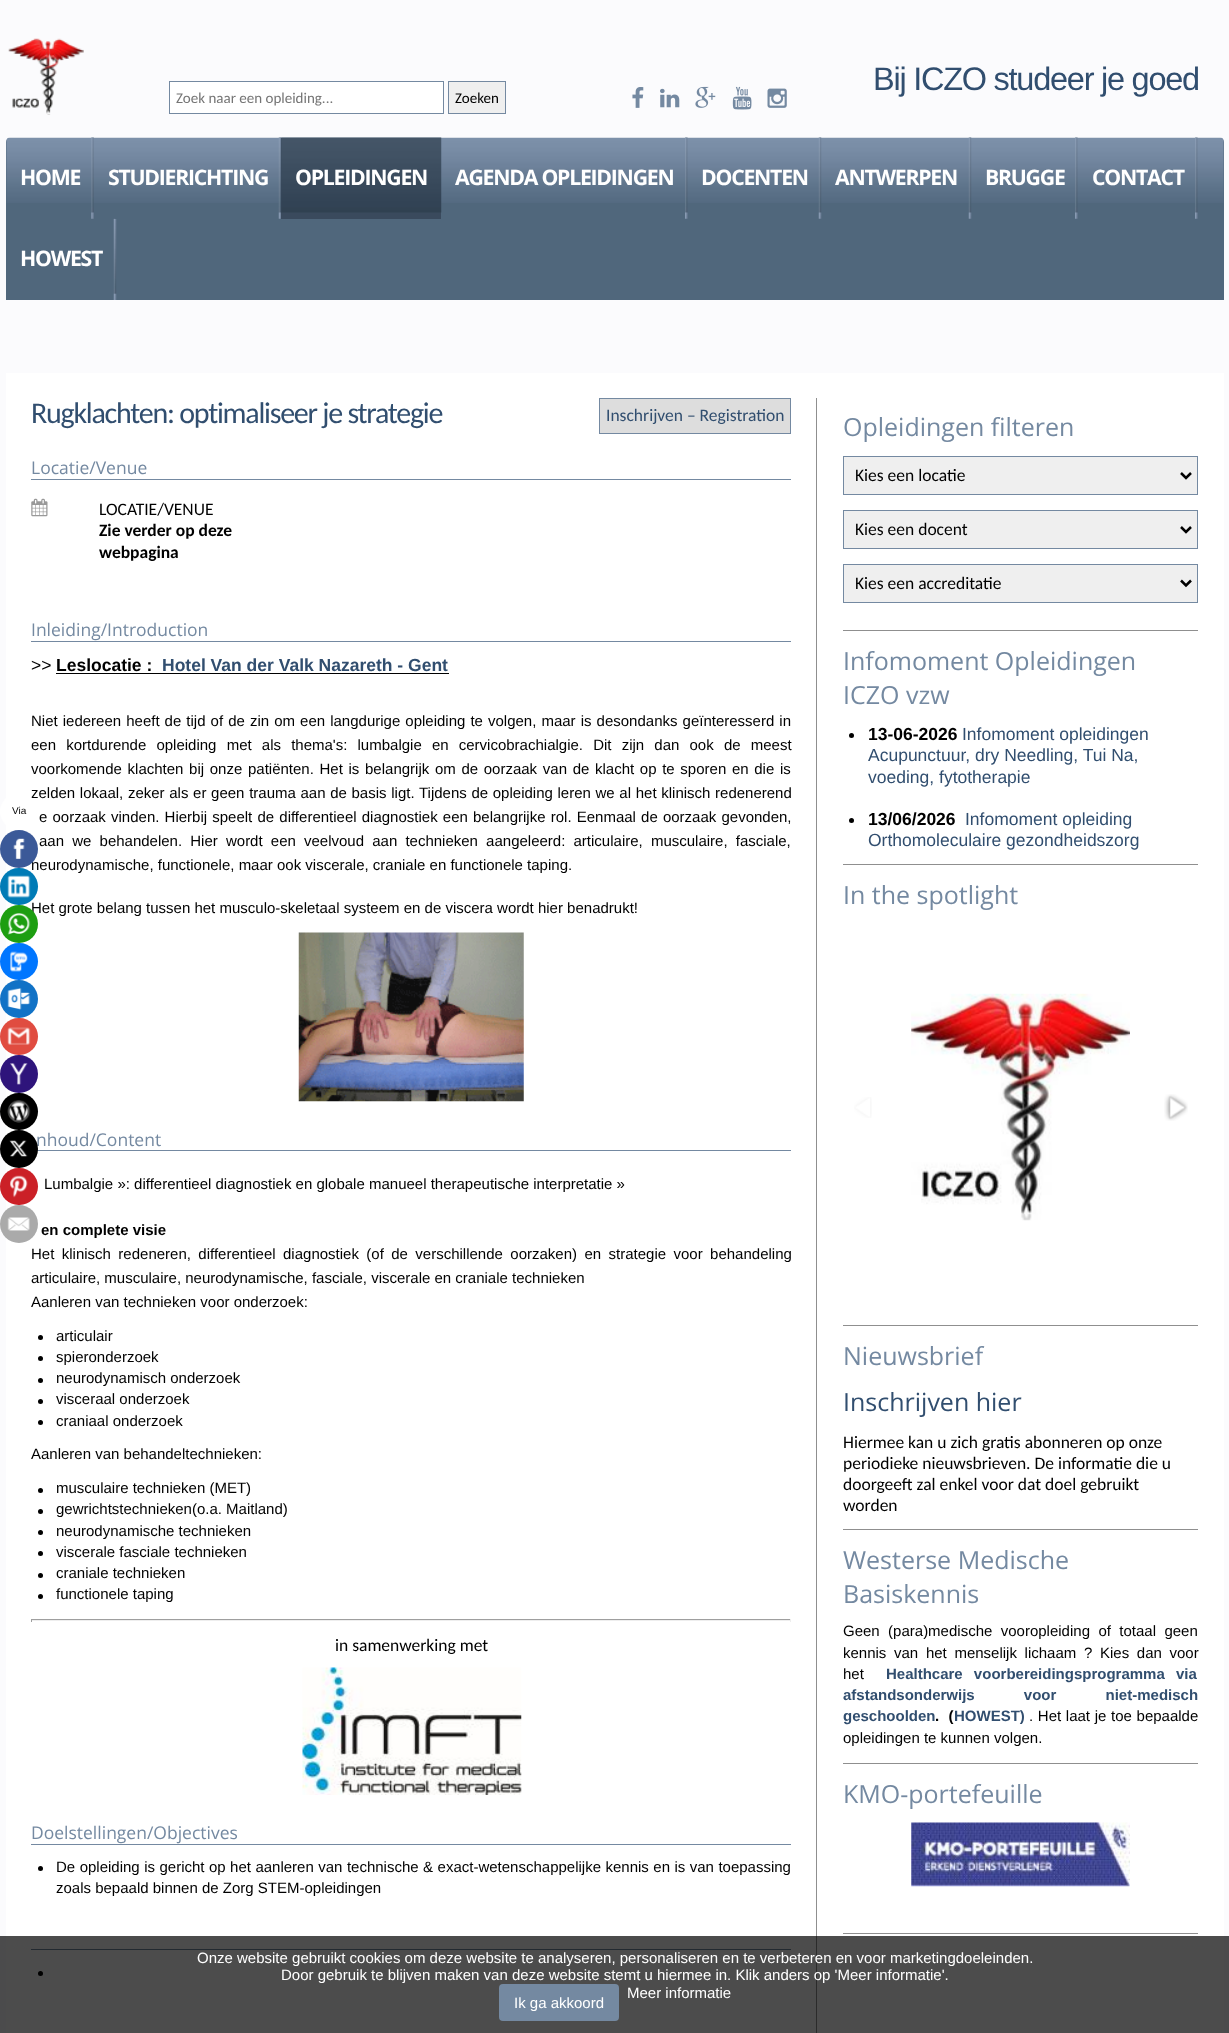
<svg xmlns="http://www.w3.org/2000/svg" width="1229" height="2033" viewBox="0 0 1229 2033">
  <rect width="100%" height="100%" fill="rgb(251,251,253)"/>
  <rect x="6" y="373" width="1218" height="1660" fill="rgb(255,255,255)"/>
  <text x="31" y="798" word-spacing="0.5" font-family="Liberation Sans" font-size="15" fill="rgb(0,0,0)">zelden lokaal, zeker als er geen trauma aan de basis ligt. Tijdens de opleiding leren we al het klinisch redenerend</text>
  <rect x="0" y="793" width="38" height="37" rx="18.5" fill="rgb(255,255,255)"/>
  <text x="12" y="814" font-family="Liberation Sans" font-size="10" fill="rgb(0,0,0)">Via</text>
  <text x="31" y="870" font-family="Liberation Sans" font-size="15" fill="rgb(0,0,0)">neurodynamische, functionele, maar ook viscerale, craniale en functionele taping.</text>
  <circle cx="19" cy="849" r="19" fill="rgb(59,89,152)"/>
  <image x="13" y="838" width="12" height="21" href="pic1.png"/>
  <text x="31" y="913" font-family="Liberation Sans" font-size="15" fill="rgb(0,0,0)">Het grote belang tussen het musculo-skeletaal systeem en de viscera wordt hier benadrukt!</text>
  <rect x="0" y="868" width="38" height="37" rx="18.5" fill="rgb(0,123,182)"/>
  <image x="7" y="875" width="24" height="23" href="pic2.png"/>
  <circle cx="19" cy="924" r="19" fill="rgb(29,158,17)"/>
  <image x="7" y="913" width="24" height="22" href="pic3.png"/>
  <rect x="0" y="943" width="38" height="37" rx="18.5" fill="rgb(0,118,255)"/>
  <image x="10" y="951" width="18" height="21" href="pic4.png"/>
  <circle cx="19" cy="999" r="19" fill="rgb(17,114,198)"/>
  <image x="7" y="988" width="24" height="22" href="pic5.png"/>
  <rect x="0" y="1018" width="38" height="37" rx="18.5" fill="rgb(224,76,64)"/>
  <image x="7" y="1027" width="24" height="18" href="pic6.png"/>
  <circle cx="19" cy="1074" r="19" fill="rgb(46,20,123)"/>
  <image x="10" y="1063" width="18" height="22" href="pic7.png"/>
  <rect x="0" y="1093" width="38" height="37" rx="18.5" fill="rgb(0,0,0)"/>
  <image x="7" y="1100" width="24" height="23" href="pic8.png"/>
  <rect x="31" y="1150" width="760" height="1" fill="rgb(116,137,161)"/>
  <text x="36" y="1146" font-family="Open Sans" font-size="17.5" fill="rgb(116,137,161)">nhoud/Content</text>
  <circle cx="19" cy="1149" r="19" fill="rgb(0,0,0)"/>
  <image x="9" y="1140" width="19" height="17" href="pic9.png"/>
  <rect x="0" y="1168" width="38" height="37" rx="18.5" fill="rgb(203,32,39)"/>
  <image x="10" y="1175" width="18" height="23" href="pic10.png"/>
  <circle cx="19" cy="1224" r="19" fill="rgb(170,170,170)"/>
  <image x="7" y="1217" width="23" height="14" href="pic11.png"/>
  <image x="8" y="38" width="76" height="77" href="pic12.png"/>
  <rect x="169.5" y="81.5" width="274" height="32" fill="rgb(255,255,255)" stroke="rgb(116,137,161)"/>
  <text x="176" y="103" font-family="Carlito" font-size="15" fill="rgb(117,117,117)">Zoek naar een opleiding...</text>
  <rect x="448.5" y="81.5" width="57" height="32" fill="rgb(239,239,239)" stroke="rgb(116,137,161)"/>
  <text x="455" y="103" font-family="Carlito" font-size="15" fill="rgb(0,0,0)">Zoeken</text>
  <image x="632" y="87" width="12" height="21" href="pic13.png"/>
  <image x="660" y="88" width="20" height="20" href="pic14.png"/>
  <image x="695" y="86" width="21" height="22" href="pic15.png"/>
  <image x="732" y="86" width="20" height="24" href="pic16.png"/>
  <image x="767" y="88" width="20" height="20" href="pic17.png"/>
  <text x="873" y="90" font-family="Liberation Sans" font-size="32.5" letter-spacing="-1.25" fill="rgb(49,78,111)">Bij ICZO studeer je goed</text>
  <path d="M10 138H1220C1222 138 1224 140 1224 142V300H6V142C6 140 8 138 10 138Z" fill="rgb(80,103,124)"/>
  <image x="6" y="137" width="1218" height="66" href="pic18.png"/>
  <image x="91" y="137" width="3" height="82" href="pic19.png"/>
  <text x="20" y="185" font-family="Open Sans" font-size="21.25" font-weight="bold" letter-spacing="-1.25" fill="rgb(255,255,255)">HOME</text>
  <image x="278" y="137" width="4" height="82" href="pic20.png"/>
  <text x="108" y="185" font-family="Open Sans" font-size="21.25" font-weight="bold" letter-spacing="-1.25" fill="rgb(255,255,255)">STUDIERICHTING</text>
  <rect x="281" y="138" width="160" height="81" fill="rgb(58,74,93)"/>
  <image x="281" y="137" width="161" height="76" href="pic21.png"/>
  <text x="295" y="185" font-family="Open Sans" font-size="21.25" font-weight="bold" letter-spacing="-1.25" fill="rgb(255,255,255)">OPLEIDINGEN</text>
  <image x="685" y="137" width="3" height="82" href="pic22.png"/>
  <text x="455" y="185" font-family="Open Sans" font-size="21.25" font-weight="bold" letter-spacing="-1.25" fill="rgb(255,255,255)">AGENDA OPLEIDINGEN</text>
  <image x="818" y="137" width="4" height="82" href="pic20.png"/>
  <text x="701" y="185" font-family="Open Sans" font-size="21.25" font-weight="bold" letter-spacing="-1.25" fill="rgb(255,255,255)">DOCENTEN</text>
  <image x="968" y="137" width="4" height="82" href="pic20.png"/>
  <text x="835" y="185" font-family="Open Sans" font-size="21.25" font-weight="bold" letter-spacing="-1.25" fill="rgb(255,255,255)">ANTWERPEN</text>
  <image x="1075" y="137" width="3" height="82" href="pic23.png"/>
  <text x="985" y="185" font-family="Open Sans" font-size="21.25" font-weight="bold" letter-spacing="-1.25" fill="rgb(255,255,255)">BRUGGE</text>
  <image x="1195" y="137" width="3" height="82" href="pic24.png"/>
  <text x="1092" y="185" font-family="Open Sans" font-size="21.25" font-weight="bold" letter-spacing="-1.25" fill="rgb(255,255,255)">CONTACT</text>
  <image x="113" y="218" width="4" height="82" href="pic25.png"/>
  <text x="20" y="266" font-family="Open Sans" font-size="21.25" font-weight="bold" letter-spacing="-1.25" fill="rgb(255,255,255)">HOWEST</text>
  <rect x="816" y="398" width="1" height="1635" fill="rgb(143,143,143)"/>
  <text x="31" y="423" font-family="Carlito" font-size="30" letter-spacing="-1.25" fill="rgb(49,78,111)">Rugklachten: optimaliseer je strategie</text>
  <rect x="599.5" y="398.5" width="191" height="35" fill="rgb(221,221,221)" stroke="rgb(116,137,161)"/>
  <text x="606" y="421" font-family="Carlito" font-size="17.5" fill="rgb(49,78,111)">Inschrijven – Registration</text>
  <rect x="31" y="479" width="760" height="1" fill="rgb(116,137,161)"/>
  <text x="31" y="474" font-family="Open Sans" font-size="17.5" fill="rgb(116,137,161)">Locatie/Venue</text>
  <image x="31" y="498" width="17" height="19" href="pic26.png"/>
  <text x="99" y="515" font-family="Carlito" font-size="17.5" fill="rgb(0,0,0)">LOCATIE/VENUE</text>
  <g font-family="Carlito" font-size="17.5" font-weight="bold" fill="rgb(0,0,0)">
    <text>
      <tspan x="99" y="536">Zie verder op deze</tspan>
      <tspan x="99" y="558">webpagina</tspan>
    </text>
  </g>
  <rect x="31" y="641" width="760" height="1" fill="rgb(116,137,161)"/>
  <text x="31" y="636" font-family="Open Sans" font-size="17.5" fill="rgb(116,137,161)">Inleiding/Introduction</text>
  <text x="31" y="671" font-family="Liberation Sans" font-size="17.5" fill="rgb(0,0,0)">&gt;&gt;</text>
  <text x="56" y="671" font-family="Liberation Sans" font-size="17.5" font-weight="bold" fill="rgb(0,0,0)">Leslocatie :</text>
  <rect x="56" y="673" width="393" height="1" fill="rgb(0,0,0)"/>
  <text x="162" y="671" font-family="Liberation Sans" font-size="17.5" font-weight="bold" fill="rgb(49,78,111)">Hotel Van der Valk Nazareth - Gent</text>
  <g font-family="Liberation Sans" font-size="15" fill="rgb(0,0,0)">
    <text>
      <tspan x="31" y="726" word-spacing="0.9">Niet iedereen heeft de tijd of de zin om een langdurige opleiding te volgen, maar is desondanks geïnteresserd in</tspan>
      <tspan x="31" y="750" word-spacing="6">een kortdurende opleiding met als thema's: lumbalgie en cervicobrachialgie. Dit zijn dan ook de meest</tspan>
      <tspan x="31" y="774" word-spacing="1.5">voorkomende klachten bij onze patiënten. Het is belangrijk om de oorzaak van de klacht op te sporen en die is</tspan>
    </text>
    <text>
      <tspan x="39" y="822" word-spacing="1">e oorzaak vinden. Hierbij speelt de differentieel diagnostiek een belangrijke rol. Eenmaal de oorzaak gevonden,</tspan>
      <tspan x="39" y="846" word-spacing="4">aan we behandelen. Hier wordt een veelvoud aan technieken aangeleerd: articulaire, musculaire, fasciale,</tspan>
    </text>
  </g>
  <image x="298" y="932" width="226" height="170" href="pic27.png"/>
  <text x="44" y="1189" font-family="Liberation Sans" font-size="15" fill="rgb(0,0,0)">Lumbalgie »: differentieel diagnostiek en globale manueel therapeutische interpretatie »</text>
  <text x="41" y="1235" font-family="Liberation Sans" font-size="15" font-weight="bold" fill="rgb(0,0,0)">en complete visie</text>
  <g font-family="Liberation Sans" font-size="15" fill="rgb(0,0,0)">
    <text>
      <tspan x="31" y="1259" word-spacing="3.25">Het klinisch redeneren, differentieel diagnostiek (of de verschillende oorzaken) en strategie voor behandeling</tspan>
      <tspan x="31" y="1283">articulaire, musculaire, neurodynamische, fasciale, viscerale en craniale technieken</tspan>
      <tspan x="31" y="1307">Aanleren van technieken voor onderzoek:</tspan>
    </text>
  </g>
  <circle cx="40.5" cy="1337.5" r="2.5" fill="rgb(0,0,0)"/>
  <text x="56" y="1341" font-family="Liberation Sans" font-size="15" fill="rgb(0,0,0)">articulair</text>
  <circle cx="40.5" cy="1358.5" r="2.5" fill="rgb(0,0,0)"/>
  <text x="56" y="1362" font-family="Liberation Sans" font-size="15" fill="rgb(0,0,0)">spieronderzoek</text>
  <circle cx="40.5" cy="1380.5" r="2.5" fill="rgb(0,0,0)"/>
  <text x="56" y="1383" font-family="Liberation Sans" font-size="15" fill="rgb(0,0,0)">neurodynamisch onderzoek</text>
  <circle cx="40.5" cy="1401.5" r="2.5" fill="rgb(0,0,0)"/>
  <text x="56" y="1404" font-family="Liberation Sans" font-size="15" fill="rgb(0,0,0)">visceraal onderzoek</text>
  <circle cx="40.5" cy="1422.5" r="2.5" fill="rgb(0,0,0)"/>
  <g font-family="Liberation Sans" font-size="15" fill="rgb(0,0,0)">
    <text x="56" y="1426">craniaal onderzoek</text>
    <text x="31" y="1459">Aanleren van behandeltechnieken:</text>
  </g>
  <circle cx="40.5" cy="1490.5" r="2.5" fill="rgb(0,0,0)"/>
  <text x="56" y="1493" font-family="Liberation Sans" font-size="15" fill="rgb(0,0,0)">musculaire technieken (MET)</text>
  <circle cx="40.5" cy="1511.5" r="2.5" fill="rgb(0,0,0)"/>
  <text x="56" y="1514" font-family="Liberation Sans" font-size="15" fill="rgb(0,0,0)">gewrichtstechnieken(o.a. Maitland)</text>
  <circle cx="40.5" cy="1532.5" r="2.5" fill="rgb(0,0,0)"/>
  <text x="56" y="1536" font-family="Liberation Sans" font-size="15" fill="rgb(0,0,0)">neurodynamische technieken</text>
  <circle cx="40.5" cy="1553.5" r="2.5" fill="rgb(0,0,0)"/>
  <text x="56" y="1557" font-family="Liberation Sans" font-size="15" fill="rgb(0,0,0)">viscerale fasciale technieken</text>
  <circle cx="40.5" cy="1575.5" r="2.5" fill="rgb(0,0,0)"/>
  <text x="56" y="1578" font-family="Liberation Sans" font-size="15" fill="rgb(0,0,0)">craniale technieken</text>
  <circle cx="40.5" cy="1596.5" r="2.5" fill="rgb(0,0,0)"/>
  <text x="56" y="1599" font-family="Liberation Sans" font-size="15" fill="rgb(0,0,0)">functionele taping</text>
  <rect x="31" y="1619" width="760" height="1" fill="rgb(159,159,159)"/>
  <rect x="790" y="1619" width="1" height="3" fill="rgb(238,238,238)"/>
  <rect x="31" y="1620" width="760" height="1" fill="rgb(238,238,238)"/>
  <rect x="31" y="1619" width="1" height="3" fill="rgb(159,159,159)"/>
  <text x="335" y="1651" font-family="Carlito" font-size="17.5" fill="rgb(0,0,0)">in samenwerking met</text>
  <image x="302" y="1667" width="220" height="128" href="pic28.png"/>
  <rect x="31" y="1844" width="760" height="1" fill="rgb(116,137,161)"/>
  <text x="31" y="1839" font-family="Open Sans" font-size="17.5" fill="rgb(116,137,161)">Doelstellingen/Objectives</text>
  <circle cx="40.5" cy="1868.5" r="2.5" fill="rgb(0,0,0)"/>
  <g font-family="Liberation Sans" font-size="15" fill="rgb(0,0,0)">
    <text>
      <tspan x="56" y="1872" word-spacing="0.3">De opleiding is gericht op het aanleren van technische &amp; exact-wetenschappelijke kennis en is van toepassing</tspan>
      <tspan x="56" y="1893">zoals bepaald binnen de Zorg STEM-opleidingen</tspan>
    </text>
  </g>
  <rect x="31" y="1949" width="760" height="1" fill="rgb(116,137,161)"/>
  <circle cx="40.5" cy="1973.5" r="2.5" fill="rgb(0,0,0)"/>
  <text x="843" y="436" font-family="Open Sans" font-size="25" fill="rgb(116,137,161)">Opleidingen filteren</text>
  <rect x="843.5" y="456.5" width="354" height="38" fill="rgb(239,239,239)" stroke="rgb(116,137,161)"/>
  <path d="M1181 473L1186 478L1191 473" fill="none" stroke="rgb(0,0,0)" stroke-width="2.5"/>
  <text x="855" y="481" font-family="Carlito" font-size="17.5" fill="rgb(0,0,0)">Kies een locatie</text>
  <rect x="843.5" y="510.5" width="354" height="38" fill="rgb(239,239,239)" stroke="rgb(116,137,161)"/>
  <path d="M1181 527L1186 532L1191 527" fill="none" stroke="rgb(0,0,0)" stroke-width="2.5"/>
  <text x="855" y="535" font-family="Carlito" font-size="17.5" fill="rgb(0,0,0)">Kies een docent</text>
  <rect x="843.5" y="564.5" width="354" height="38" fill="rgb(239,239,239)" stroke="rgb(116,137,161)"/>
  <path d="M1181 580.5L1186 585.5L1191 580.5" fill="none" stroke="rgb(0,0,0)" stroke-width="2.5"/>
  <text x="855" y="589" font-family="Carlito" font-size="17.5" fill="rgb(0,0,0)">Kies een accreditatie</text>
  <rect x="843" y="630" width="355" height="1" fill="rgb(143,143,143)"/>
  <g font-family="Open Sans" font-size="25" fill="rgb(116,137,161)">
    <text>
      <tspan x="843" y="670">Infomoment Opleidingen</tspan>
      <tspan x="843" y="704">ICZO vzw</tspan>
    </text>
  </g>
  <circle cx="851.5" cy="735.5" r="2.5" fill="rgb(0,0,0)"/>
  <text x="868" y="740" font-family="Liberation Sans" font-size="17.5" font-weight="bold" fill="rgb(0,0,0)">13-06-2026</text>
  <g font-family="Liberation Sans" font-size="17.5" fill="rgb(49,78,111)">
    <text x="962" y="740">Infomoment opleidingen</text>
    <text>
      <tspan x="868" y="761">Acupunctuur, dry Needling, Tui Na,</tspan>
      <tspan x="868" y="783">voeding, fytotherapie</tspan>
    </text>
  </g>
  <circle cx="851.5" cy="820.5" r="2.5" fill="rgb(0,0,0)"/>
  <text x="868" y="825" font-family="Liberation Sans" font-size="17.5" font-weight="bold" fill="rgb(0,0,0)">13/06/2026</text>
  <g font-family="Liberation Sans" font-size="17.5" fill="rgb(49,78,111)">
    <text x="965" y="825">Infomoment opleiding</text>
    <text x="868" y="846">Orthomoleculaire gezondheidszorg</text>
  </g>
  <rect x="843" y="864" width="355" height="1" fill="rgb(143,143,143)"/>
  <text x="843" y="904" font-family="Open Sans" font-size="25" fill="rgb(116,137,161)">In the spotlight</text>
  <image x="854" y="1097" width="18" height="21" href="pic29.png"/>
  <image x="911" y="993" width="219" height="228" href="pic30.png"/>
  <image x="1164" y="1094" width="24" height="27" href="pic31.png"/>
  <rect x="843" y="1325" width="355" height="1" fill="rgb(143,143,143)"/>
  <text x="843" y="1365" font-family="Open Sans" font-size="25" fill="rgb(116,137,161)">Nieuwsbrief</text>
  <text x="843" y="1411" font-family="Open Sans" font-size="25" fill="rgb(49,78,111)">Inschrijven hier</text>
  <g font-family="Carlito" font-size="17.5" fill="rgb(0,0,0)">
    <text>
      <tspan x="843" y="1448">Hiermee kan u zich gratis abonneren op onze</tspan>
      <tspan x="843" y="1469">periodieke nieuwsbrieven. De informatie die u</tspan>
      <tspan x="843" y="1490">doorgeeft zal enkel voor dat doel gebruikt</tspan>
      <tspan x="843" y="1511">worden</tspan>
    </text>
  </g>
  <rect x="843" y="1529" width="355" height="1" fill="rgb(143,143,143)"/>
  <g font-family="Open Sans" font-size="25" fill="rgb(116,137,161)">
    <text>
      <tspan x="843" y="1569">Westerse Medische</tspan>
      <tspan x="843" y="1603">Basiskennis</tspan>
    </text>
  </g>
  <g font-family="Liberation Sans" font-size="15" fill="rgb(0,0,0)">
    <text>
      <tspan x="843" y="1636" word-spacing="4.25">Geen (para)medische vooropleiding of totaal geen</tspan>
      <tspan x="843" y="1658" word-spacing="3.5">kennis van het menselijk lichaam ? Kies dan voor</tspan>
      <tspan x="843" y="1679">het</tspan>
    </text>
  </g>
  <g font-family="Liberation Sans" font-size="15" font-weight="bold" fill="rgb(49,78,111)">
    <text x="886" y="1679" word-spacing="7">Healthcare voorbereidingsprogramma via</text>
    <text>
      <tspan x="843" y="1700" word-spacing="45">afstandsonderwijs voor niet-medisch</tspan>
      <tspan x="843" y="1721">geschoolden</tspan>
    </text>
  </g>
  <text x="935" y="1721" word-spacing="0.5" font-family="Liberation Sans" font-size="15" font-weight="bold" fill="rgb(0,0,0)" xml:space="preserve">.  (</text>
  <text x="954" y="1721" font-family="Liberation Sans" font-size="15" font-weight="bold" fill="rgb(49,78,111)">HOWEST)</text>
  <g font-family="Liberation Sans" font-size="15" fill="rgb(0,0,0)">
    <text x="1029" y="1721" word-spacing="0.5">. Het laat je toe bepaalde</text>
    <text x="843" y="1743">opleidingen te kunnen volgen.</text>
  </g>
  <rect x="843" y="1763" width="355" height="1" fill="rgb(143,143,143)"/>
  <text x="843" y="1803" font-family="Open Sans" font-size="25" fill="rgb(116,137,161)">KMO-portefeuille</text>
  <image x="911" y="1822" width="219" height="65" href="pic32.png"/>
  <rect x="843" y="1933" width="355" height="1" fill="rgb(143,143,143)"/>
  <rect x="0" y="1936" width="1229" height="97" fill="rgba(0,0,0,0.7)"/>
  <g font-family="Liberation Sans" font-size="15" fill="rgb(255,255,255)">
    <text x="197" y="1963">Onze website gebruikt cookies om deze website te analyseren, personaliseren en te verbeteren en voor marketingdoeleinden.</text>
    <text x="281" y="1980">Door gebruik te blijven maken van deze website stemt u hiermee in. Klik anders op 'Meer informatie'.</text>
    <text x="627" y="1998">Meer informatie</text>
  </g>
  <rect x="499" y="1984" width="120" height="37" rx="4" fill="rgb(116,137,161)"/>
  <text x="514" y="2008" font-family="Liberation Sans" font-size="15" fill="rgb(255,255,255)">Ik ga akkoord</text>
</svg>
